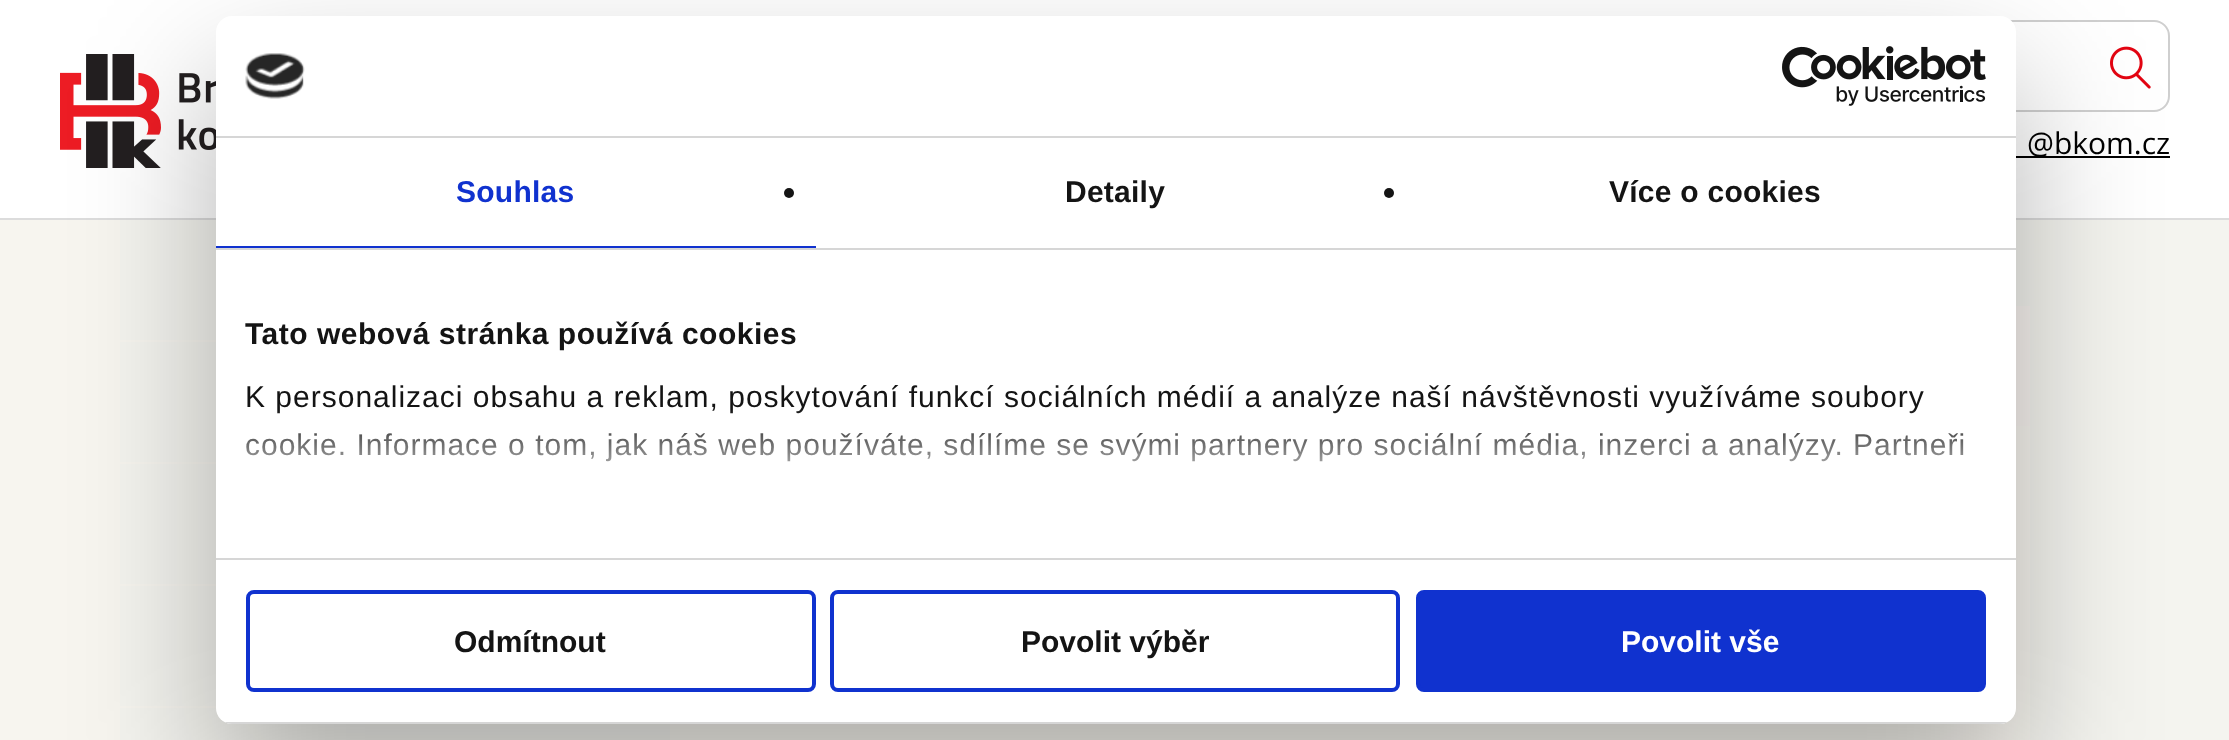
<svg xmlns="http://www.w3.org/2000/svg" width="2229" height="740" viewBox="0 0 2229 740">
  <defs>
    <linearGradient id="g1" gradientUnits="userSpaceOnUse" x1="1103" y1="558" x2="1103" y2="408"><stop offset="0" stop-color="rgb(255,255,255)"/><stop offset="0.5" stop-color="rgb(255,255,255)" stop-opacity="0.8"/><stop offset="1" stop-color="rgb(255,255,255)" stop-opacity="0"/></linearGradient>
    <clipPath id="clip1"><rect x="216" y="16" width="1800" height="708" rx="16"/></clipPath>
  </defs>
  <rect width="100%" height="100%" fill="rgb(244,244,239)"/>
  <rect x="0" y="0" width="2229" height="218" fill="rgb(255,255,255)"/>
  <rect x="0" y="218" width="2229" height="2" fill="rgb(220,220,220)"/>
  <image x="60" y="54" width="156" height="114" href="pic1.png"/>
  <rect x="1671" y="21" width="498" height="90" rx="15" fill="none" stroke="rgb(207,207,207)" stroke-width="2"/>
  <image x="2110" y="46" width="41" height="43" href="pic2.png"/>
  <rect x="2016" y="156" width="154" height="2" fill="rgb(0,0,0)"/>
  <text x="2027" y="154" font-family="Open Sans" font-size="30" fill="rgb(0,0,0)">@bkom.cz</text>
  <rect x="0" y="220" width="120" height="120" fill="rgb(247,245,239)"/>
  <rect x="0" y="340" width="216" height="2" fill="rgb(247,245,239)"/>
  <rect x="0" y="342" width="120" height="120" fill="rgb(247,245,239)"/>
  <rect x="0" y="462" width="216" height="2" fill="rgb(247,245,239)"/>
  <rect x="0" y="464" width="120" height="120" fill="rgb(247,245,239)"/>
  <rect x="0" y="584" width="216" height="2" fill="rgb(247,245,239)"/>
  <rect x="0" y="586" width="120" height="120" fill="rgb(247,245,239)"/>
  <rect x="0" y="706" width="216" height="2" fill="rgb(247,245,239)"/>
  <rect x="0" y="708" width="120" height="32" fill="rgb(247,245,239)"/>
  <rect x="2016" y="306" width="14" height="120" fill="rgb(248,244,240)"/>
  <rect x="670" y="426" width="1360" height="314" fill="rgb(248,246,240)"/>
  <rect x="216" y="80" width="1800" height="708" rx="16" fill="rgba(0,0,0,0.3)" filter="blur(68px)"/>
  <rect x="216" y="16" width="1800" height="708" rx="16" fill="rgb(255,255,255)"/>
  <rect x="216" y="136" width="1800" height="2" fill="rgb(214,214,214)"/>
  <image x="245" y="53" width="60" height="46" href="pic3.png"/>
  <image x="1782" y="46" width="204" height="60" href="pic4.png"/>
  <rect x="216" y="248" width="1800" height="2" fill="rgb(214,214,214)"/>
  <rect x="216" y="246" width="600" height="2" fill="rgb(16,50,207)"/>
  <text x="456" y="202" font-family="Liberation Sans" font-size="30" font-weight="bold" letter-spacing="0.25" fill="rgb(16,50,207)">Souhlas</text>
  <circle cx="789" cy="193" r="5" fill="rgb(20,20,20)"/>
  <text x="1065" y="202" font-family="Liberation Sans" font-size="30" font-weight="bold" letter-spacing="0.25" fill="rgb(20,20,20)">Detaily</text>
  <circle cx="1389" cy="193" r="5" fill="rgb(20,20,20)"/>
  <text x="1609" y="202" font-family="Liberation Sans" font-size="30" font-weight="bold" letter-spacing="0.25" fill="rgb(20,20,20)">Více o cookies</text>
  <rect x="216" y="558" width="1800" height="2" fill="rgb(214,214,214)"/>
  <text x="245" y="344" font-family="Liberation Sans" font-size="30" font-weight="bold" letter-spacing="0.5" fill="rgb(20,20,20)">Tato webová stránka používá cookies</text>
  <g font-family="Liberation Sans" font-size="30" letter-spacing="1" fill="rgb(20,20,20)">
    <text>
      <tspan x="245" y="407">K personalizaci obsahu a reklam, poskytování funkcí sociálních médií a analýze naší návštěvnosti využíváme soubory</tspan>
      <tspan x="245" y="455">cookie. Informace o tom, jak náš web používáte, sdílíme se svými partnery pro sociální média, inzerci a analýzy. Partneři</tspan>
    </text>
  </g>
  <rect x="246" y="410" width="1718" height="52" fill="url(#g1)"/>
  <g clip-path="url(#clip1)">
    <rect x="216" y="722" width="1800" height="2" fill="rgb(214,214,214)"/>
  </g>
  <rect x="248" y="592" width="566" height="98" rx="6" fill="none" stroke="rgb(16,50,207)" stroke-width="4"/>
  <text x="454" y="652" font-family="Liberation Sans" font-size="30" font-weight="bold" fill="rgb(20,20,20)">Odmítnout</text>
  <rect x="832" y="592" width="566" height="98" rx="6" fill="none" stroke="rgb(16,50,207)" stroke-width="4"/>
  <text x="1021" y="652" font-family="Liberation Sans" font-size="30" font-weight="bold" fill="rgb(20,20,20)">Povolit výběr</text>
  <rect x="1418" y="592" width="566" height="98" rx="6" fill="rgb(16,50,207)" stroke="rgb(16,50,207)" stroke-width="4"/>
  <text x="1621" y="652" font-family="Liberation Sans" font-size="30" font-weight="bold" fill="rgb(255,255,255)">Povolit vše</text>
</svg>
